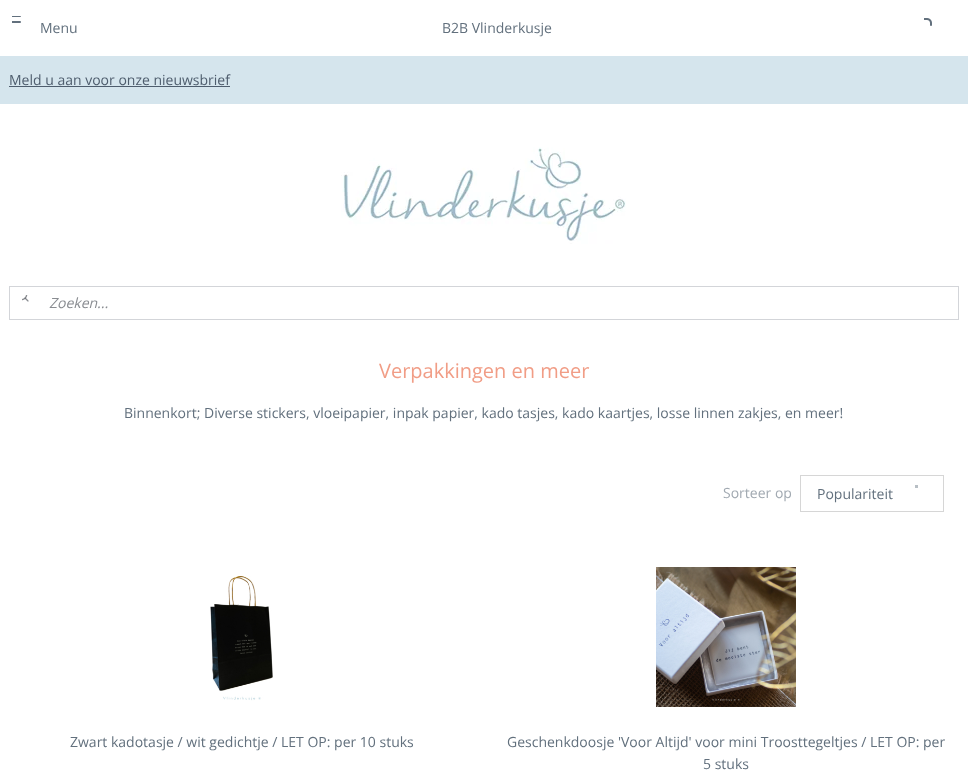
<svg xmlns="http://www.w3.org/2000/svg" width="968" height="775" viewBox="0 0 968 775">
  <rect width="100%" height="100%" fill="rgb(255,255,255)"/>
  <image x="12" y="16" width="9" height="7" href="pic1.png"/>
  <g font-family="Open Sans" font-size="14" fill="rgb(98,112,125)">
    <text x="40" y="33">Menu</text>
    <text x="442" y="33">B2B Vlinderkusje</text>
  </g>
  <image x="924" y="18" width="8" height="8" href="pic2.png"/>
  <rect x="0" y="56" width="968" height="48" fill="rgb(213,229,237)"/>
  <text x="9" y="85" font-family="Open Sans" font-size="14" fill="rgb(78,93,109)">Meld u aan voor onze nieuwsbrief</text>
  <rect x="9" y="86" width="221" height="1" fill="rgb(78,93,109)"/>
  <image x="341" y="147" width="285" height="97" href="pic3.png"/>
  <rect x="9.5" y="286.5" width="949" height="33" fill="none" stroke="rgb(211,213,217)"/>
  <image x="22" y="295" width="7" height="7" href="pic4.png"/>
  <text x="49" y="308" font-family="Open Sans" font-size="14" font-style="italic" fill="rgb(137,140,145)">Zoeken...</text>
  <text x="379" y="378" font-family="Open Sans" font-size="20" fill="rgb(241,157,134)">Verpakkingen en meer</text>
  <text x="124" y="418" font-family="Open Sans" font-size="14" fill="rgb(98,112,125)">Binnenkort; Diverse stickers, vloeipapier, inpak papier, kado tasjes, kado kaartjes, losse linnen zakjes, en meer!</text>
  <text x="723" y="498" font-family="Open Sans" font-size="14" fill="rgb(161,169,177)">Sorteer op</text>
  <rect x="800.5" y="475.5" width="143" height="36" fill="none" stroke="rgb(214,214,214)"/>
  <rect x="915" y="485" width="3" height="3" fill="rgb(184,191,197)"/>
  <text x="817" y="499" font-family="Open Sans" font-size="14" fill="rgb(98,112,125)">Populariteit</text>
  <image x="210" y="576" width="63" height="125" href="pic5.png"/>
  <text x="70" y="747" font-family="Open Sans" font-size="14" fill="rgb(98,112,125)">Zwart kadotasje / wit gedichtje / LET OP: per 10 stuks</text>
  <image x="656" y="567" width="140" height="140" href="pic6.png"/>
  <g font-family="Open Sans" font-size="14" fill="rgb(98,112,125)">
    <text x="507" y="747">Geschenkdoosje 'Voor Altijd' voor mini Troosttegeltjes / LET OP: per</text>
    <text x="703" y="769">5 stuks</text>
  </g>
</svg>
